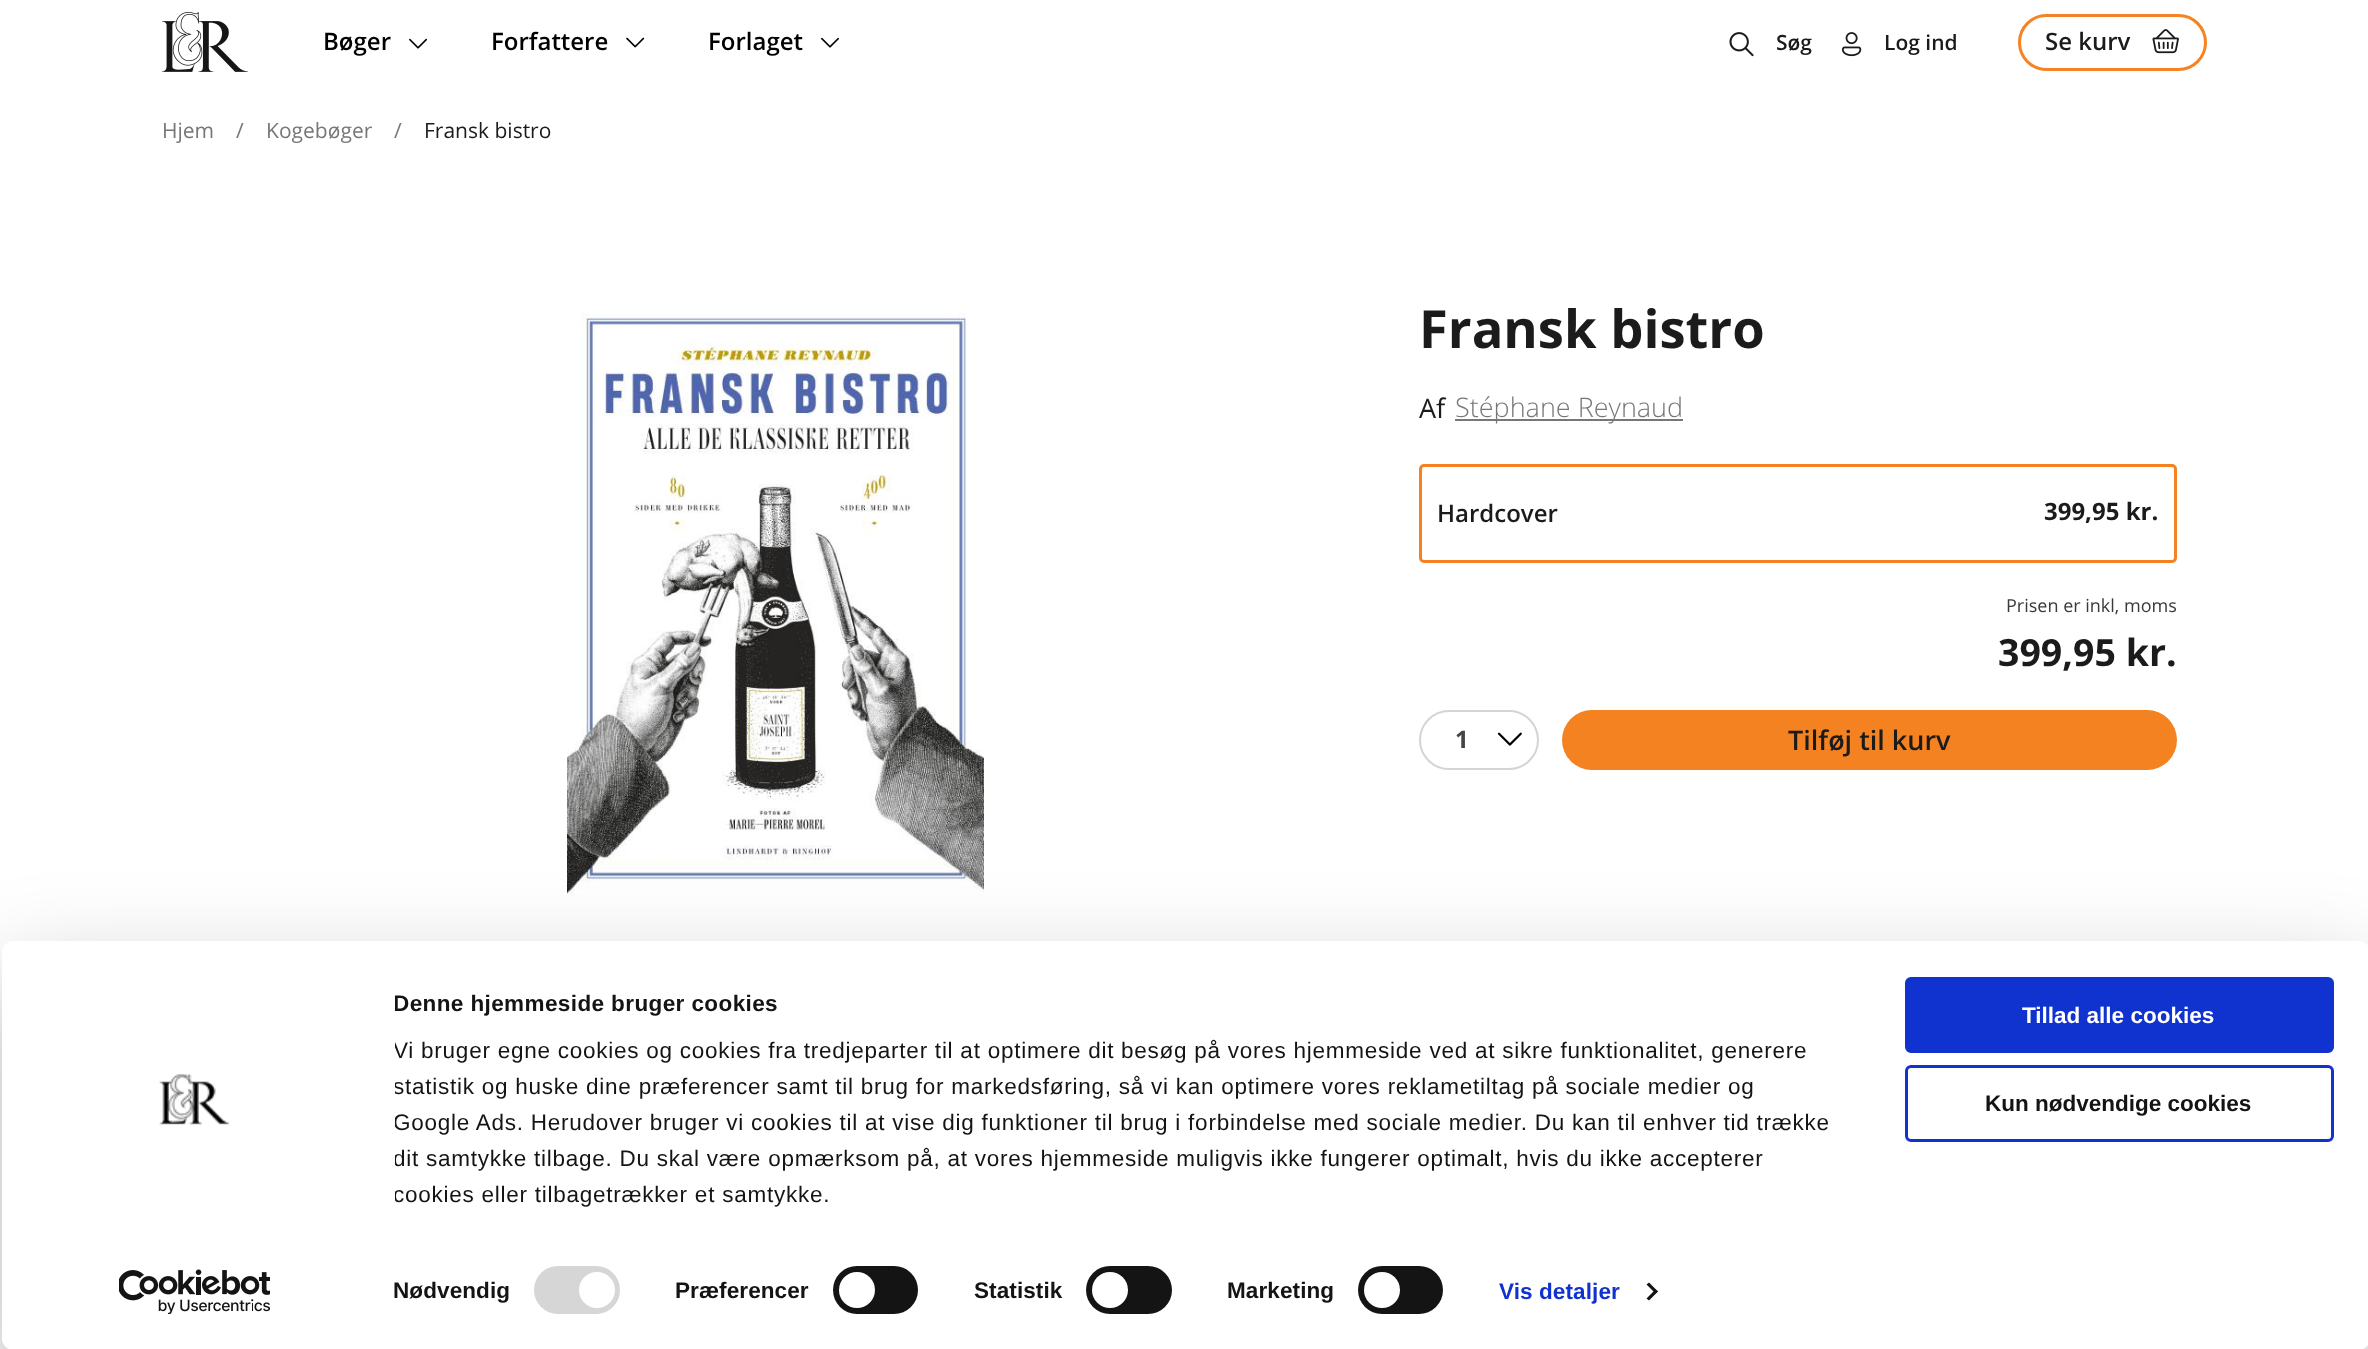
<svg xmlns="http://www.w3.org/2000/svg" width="2368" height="1349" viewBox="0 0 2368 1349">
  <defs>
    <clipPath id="clip1"><path d="M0 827H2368V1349H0ZM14 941H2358C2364.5 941 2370 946.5 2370 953V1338C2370 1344.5 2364.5 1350 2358 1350H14C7.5 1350 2 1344.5 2 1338V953C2 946.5 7.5 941 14 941Z" clip-rule="evenodd"/></clipPath>
    <clipPath id="clip2"><rect x="395" y="986" width="1467" height="226"/></clipPath>
  </defs>
  <rect width="100%" height="100%" fill="rgb(255,255,255)"/>
  <image x="162" y="12" width="86" height="60" href="pic1.png"/>
  <text x="323" y="50" font-family="Open Sans" font-size="24" font-weight="600" fill="rgb(0,0,0)">Bøger</text>
  <image x="409" y="38" width="18" height="11" href="pic2.png"/>
  <text x="491" y="50" font-family="Open Sans" font-size="24" font-weight="600" fill="rgb(0,0,0)">Forfattere</text>
  <image x="626" y="37" width="19" height="11" href="pic3.png"/>
  <text x="708" y="50" font-family="Open Sans" font-size="24" font-weight="600" fill="rgb(0,0,0)">Forlaget</text>
  <image x="821" y="37" width="18" height="11" href="pic4.png"/>
  <image x="1729" y="32" width="25" height="25" href="pic5.png"/>
  <text x="1776" y="50" font-family="Open Sans" font-size="21" font-weight="600" fill="rgb(27,27,27)">Søg</text>
  <image x="1842" y="32" width="20" height="25" href="pic6.png"/>
  <text x="1884" y="50" font-family="Open Sans" font-size="21" font-weight="600" fill="rgb(27,27,27)">Log ind</text>
  <rect x="2019.5" y="15.5" width="186" height="54" rx="27" fill="none" stroke="rgb(245,130,35)" stroke-width="3"/>
  <text x="2045" y="50" font-family="Open Sans" font-size="24" font-weight="600" fill="rgb(27,27,27)">Se kurv</text>
  <image x="2152" y="29" width="27" height="25" href="pic7.png"/>
  <g font-family="Open Sans" font-size="21" fill="rgb(119,119,119)">
    <text x="162" y="138">Hjem</text>
    <text x="236" y="138">/</text>
    <text x="266" y="138">Kogebøger</text>
    <text x="394" y="138">/</text>
  </g>
  <text x="424" y="138" font-family="Open Sans" font-size="21" fill="rgb(27,27,27)">Fransk bistro</text>
  <image x="567" y="313" width="417" height="583" href="pic8.png"/>
  <text x="1419" y="348" font-family="Open Sans" font-size="52.5" font-weight="bold" fill="rgb(27,27,27)">Fransk bistro</text>
  <text x="1419" y="418" font-family="Open Sans" font-size="27" fill="rgb(27,27,27)">Af</text>
  <rect x="1455" y="419" width="228" height="2" fill="rgb(119,119,119)"/>
  <text x="1455" y="417" font-family="Open Sans" font-size="27" font-weight="300" fill="rgb(119,119,119)">Stéphane Reynaud</text>
  <rect x="1420.5" y="465.5" width="755" height="96" rx="3.5" fill="none" stroke="rgb(245,130,32)" stroke-width="3"/>
  <text x="1437" y="522" font-family="Open Sans" font-size="24" font-weight="600" fill="rgb(27,27,27)">Hardcover</text>
  <text x="2044" y="520" font-family="Open Sans" font-size="24" font-weight="bold" fill="rgb(27,27,27)">399,95 kr.</text>
  <text x="2006" y="612" font-family="Open Sans" font-size="18" fill="rgb(57,57,57)">Prisen er inkl, moms</text>
  <text x="1998" y="666" font-family="Open Sans" font-size="37.5" font-weight="bold" fill="rgb(27,27,27)">399,95 kr.</text>
  <rect x="1420" y="711" width="118" height="58" rx="29" fill="none" stroke="rgb(212,212,212)" stroke-width="2"/>
  <text x="1455" y="748" font-family="Open Sans" font-size="24" font-weight="bold" fill="rgb(68,68,68)">1</text>
  <image x="1497" y="732" width="25" height="14" href="pic9.png"/>
  <rect x="1562" y="710" width="615" height="60" rx="30" fill="rgb(245,130,32)"/>
  <text x="1788" y="750" font-family="Open Sans" font-size="27" font-weight="600" fill="rgb(27,27,27)">Tilføj til kurv</text>
  <g clip-path="url(#clip1)">
    <rect x="2" y="986" width="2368" height="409" rx="12" fill="rgba(0,0,0,0.3)" filter="blur(52.5px)"/>
  </g>
  <rect x="2" y="941" width="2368" height="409" rx="12" fill="rgb(255,255,255)"/>
  <g clip-path="url(#clip2)">
    <text x="393" y="1011" font-family="Liberation Sans" font-size="22.5" font-weight="bold" letter-spacing="0.4" fill="rgb(20,20,20)">Denne hjemmeside bruger cookies</text>
    <text x="393" y="1058" font-family="Liberation Sans" font-size="22.5" letter-spacing="0.75" fill="rgb(20,20,20)">Vi bruger egne cookies og cookies fra tredjeparter til at optimere dit</text>
  </g>
  <text x="1121" y="1058" font-family="Liberation Sans" font-size="22.5" letter-spacing="0.75" fill="rgb(20,20,20)">besøg på vores hjemmeside ved at sikre funktionalitet, generere</text>
  <g clip-path="url(#clip2)">
    <g font-family="Liberation Sans" font-size="22.5" letter-spacing="0.75" fill="rgb(20,20,20)">
      <text>
        <tspan x="393" y="1094">statistik og huske dine præferencer samt til brug for markedsføring, så vi kan optimere vores reklametiltag på sociale medier og</tspan>
        <tspan x="393" y="1130">Google Ads. Herudover bruger vi cookies til at vise dig funktioner til brug i forbindelse med sociale medier. Du kan til enhver tid trække</tspan>
        <tspan x="393" y="1166">dit samtykke tilbage. Du skal være opmærksom på, at vores hjemmeside muligvis ikke fungerer optimalt, hvis du ikke accepterer</tspan>
        <tspan x="393" y="1202">cookies eller tilbagetrækker et samtykke.</tspan>
      </text>
    </g>
  </g>
  <text x="393" y="1298" font-family="Liberation Sans" font-size="22.5" font-weight="bold" letter-spacing="0.1" fill="rgb(20,20,20)">Nødvendig</text>
  <rect x="534" y="1266" width="86" height="48" rx="24" fill="rgb(214,214,214)"/>
  <circle cx="597" cy="1290" r="18" fill="rgb(255,255,255)"/>
  <text x="675" y="1298" font-family="Liberation Sans" font-size="22.5" font-weight="bold" letter-spacing="0.1" fill="rgb(20,20,20)">Præferencer</text>
  <rect x="833" y="1266" width="85" height="48" rx="24" fill="rgb(20,20,20)"/>
  <circle cx="857" cy="1290" r="18" fill="rgb(255,255,255)"/>
  <text x="974" y="1298" font-family="Liberation Sans" font-size="22.5" font-weight="bold" letter-spacing="0.1" fill="rgb(20,20,20)">Statistik</text>
  <rect x="1086" y="1266" width="86" height="48" rx="24" fill="rgb(20,20,20)"/>
  <circle cx="1110" cy="1290" r="18" fill="rgb(255,255,255)"/>
  <text x="1227" y="1298" font-family="Liberation Sans" font-size="22.5" font-weight="bold" letter-spacing="0.1" fill="rgb(20,20,20)">Marketing</text>
  <rect x="1358" y="1266" width="85" height="48" rx="24" fill="rgb(20,20,20)"/>
  <circle cx="1382" cy="1290" r="18" fill="rgb(255,255,255)"/>
  <text x="1499" y="1299" font-family="Liberation Sans" font-size="22.5" font-weight="bold" letter-spacing="0.1" fill="rgb(16,50,207)">Vis detaljer</text>
  <path d="M1649 1282.5L1658 1291.5L1655.5 1293.5L1646.5 1284.5Z" fill="rgb(20,20,20)"/>
  <path d="M1655.5 1289.5L1658 1291.5L1649 1300.5L1646.5 1298.5Z" fill="rgb(20,20,20)"/>
  <rect x="1906.5" y="978.5" width="426" height="73" rx="4.5" fill="rgb(16,50,207)" stroke="rgb(16,50,207)" stroke-width="3"/>
  <text x="2022" y="1023" font-family="Liberation Sans" font-size="22.5" font-weight="bold" fill="rgb(255,255,255)">Tillad alle cookies</text>
  <rect x="1906.5" y="1066.5" width="426" height="74" rx="4.5" fill="none" stroke="rgb(16,50,207)" stroke-width="3"/>
  <text x="1985" y="1111" font-family="Liberation Sans" font-size="22.5" font-weight="bold" fill="rgb(20,20,20)">Kun nødvendige cookies</text>
  <image x="159" y="1073" width="70" height="53" href="pic10.png"/>
  <image x="119" y="1269" width="151" height="45" href="pic11.png"/>
</svg>
